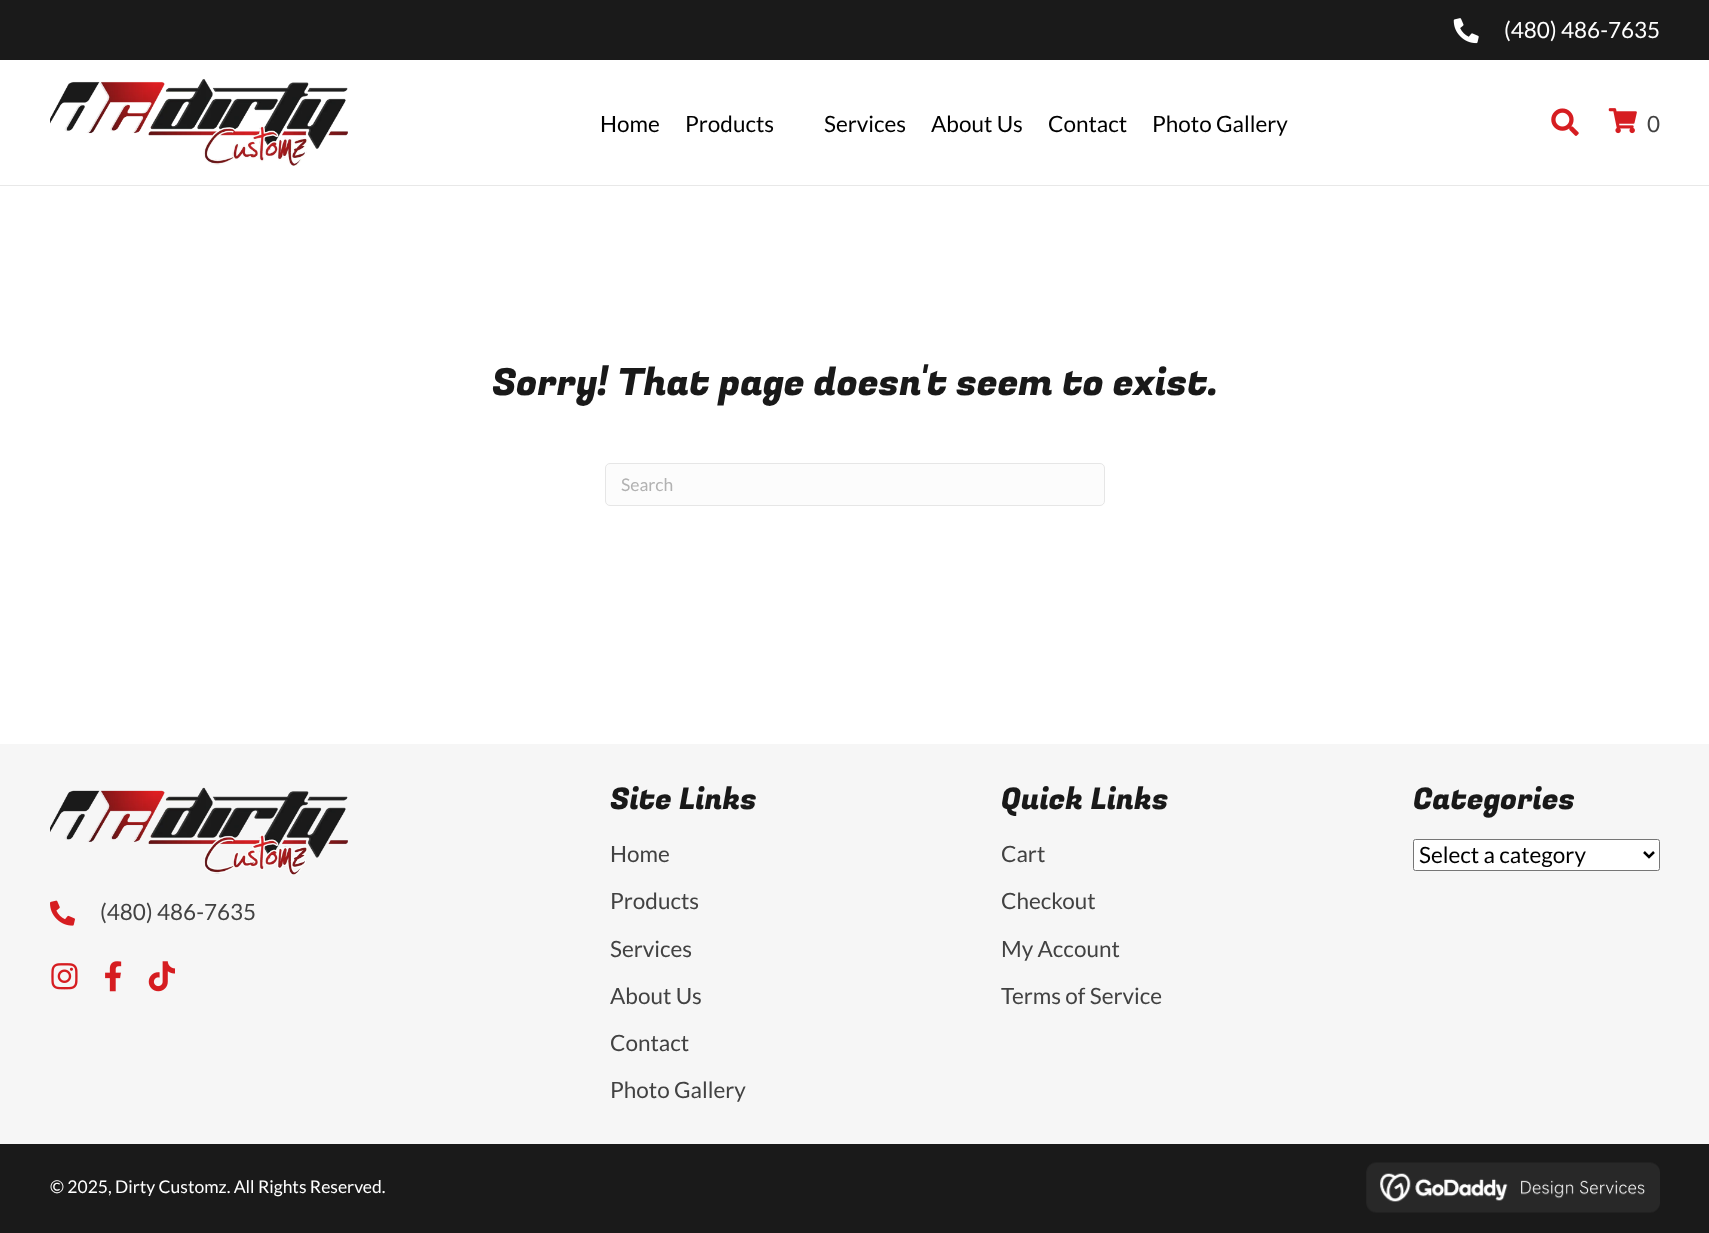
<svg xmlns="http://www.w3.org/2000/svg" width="1709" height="1233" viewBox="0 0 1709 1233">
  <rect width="100%" height="100%" fill="rgb(255,255,255)"/>
  <rect x="0" y="0" width="1709" height="60" fill="rgb(26,26,26)"/>
  <image x="1453" y="18" width="26" height="26" href="pic1.png"/>
  <text x="1504" y="38" font-family="Lato" font-size="22.5" fill="rgb(255,255,255)">(480) 486-7635</text>
  <rect x="0" y="185" width="1709" height="1" fill="rgb(232,232,232)"/>
  <image x="50" y="79" width="298" height="87" href="pic2.png"/>
  <g font-family="Lato" font-size="22.5" fill="rgb(0,0,0)">
    <text x="600" y="132">Home</text>
    <text x="685" y="132">Products</text>
    <text x="824" y="132">Services</text>
    <text x="931" y="132">About Us</text>
    <text x="1048" y="132">Contact</text>
    <text x="1152" y="132">Photo Gallery</text>
  </g>
  <image x="1551" y="108" width="28" height="28" href="pic3.png"/>
  <image x="1608" y="108" width="29" height="26" href="pic4.png"/>
  <text x="1647" y="132" font-family="Lato" font-size="22.5" fill="rgb(66,66,66)">0</text>
  <text x="492" y="395" font-family="Fugaz One" font-size="37.5" fill="rgb(25,25,25)">Sorry! That page doesn't seem to exist.</text>
  <rect x="605.5" y="463.5" width="499" height="42" rx="4.5" fill="rgb(252,252,252)" stroke="rgb(230,230,230)"/>
  <text x="621" y="491" font-family="Lato" font-size="17.5" fill="rgb(178,178,178)">Search</text>
  <rect x="0" y="744" width="1709" height="400" fill="rgb(246,246,246)"/>
  <text x="610" y="809" font-family="Fugaz One" font-size="30" fill="rgb(25,25,25)">Site Links</text>
  <g font-family="Lato" font-size="22.5" fill="rgb(66,66,66)">
    <text x="610" y="862">Home</text>
    <text x="610" y="909">Products</text>
    <text x="610" y="957">Services</text>
    <text x="610" y="1004">About Us</text>
    <text x="610" y="1051">Contact</text>
    <text x="610" y="1098">Photo Gallery</text>
  </g>
  <text x="1001" y="809" font-family="Fugaz One" font-size="30" fill="rgb(25,25,25)">Quick Links</text>
  <g font-family="Lato" font-size="22.5" fill="rgb(66,66,66)">
    <text x="1001" y="862">Cart</text>
    <text x="1001" y="909">Checkout</text>
    <text x="1001" y="957">My Account</text>
    <text x="1001" y="1004">Terms of Service</text>
  </g>
  <text x="1413" y="809" font-family="Fugaz One" font-size="30" fill="rgb(25,25,25)">Categories</text>
  <rect x="1413.5" y="839.5" width="246" height="31" rx="2" fill="rgb(255,255,255)" stroke="rgb(118,118,118)"/>
  <path d="M1644 852L1649 857L1654 852" fill="none" stroke="rgb(0,0,0)" stroke-width="2.5"/>
  <text x="1419" y="863" font-family="Lato" font-size="22.5" fill="rgb(0,0,0)">Select a category</text>
  <image x="50" y="787" width="298" height="88" href="pic5.png"/>
  <image x="50" y="900" width="25" height="26" href="pic6.png"/>
  <text x="100" y="920" font-family="Lato" font-size="22.5" fill="rgb(66,66,66)">(480) 486-7635</text>
  <image x="51" y="963" width="27" height="27" href="pic7.png"/>
  <image x="105" y="961" width="17" height="31" href="pic8.png"/>
  <image x="148" y="961" width="27" height="31" href="pic9.png"/>
  <rect x="0" y="1144" width="1709" height="89" fill="rgb(26,26,26)"/>
  <text x="50" y="1193" font-family="Lato" font-size="17.5" fill="rgb(255,255,255)">© 2025, Dirty Customz. All Rights Reserved.</text>
  <image x="1366" y="1162" width="294" height="51" href="pic10.png"/>
</svg>
